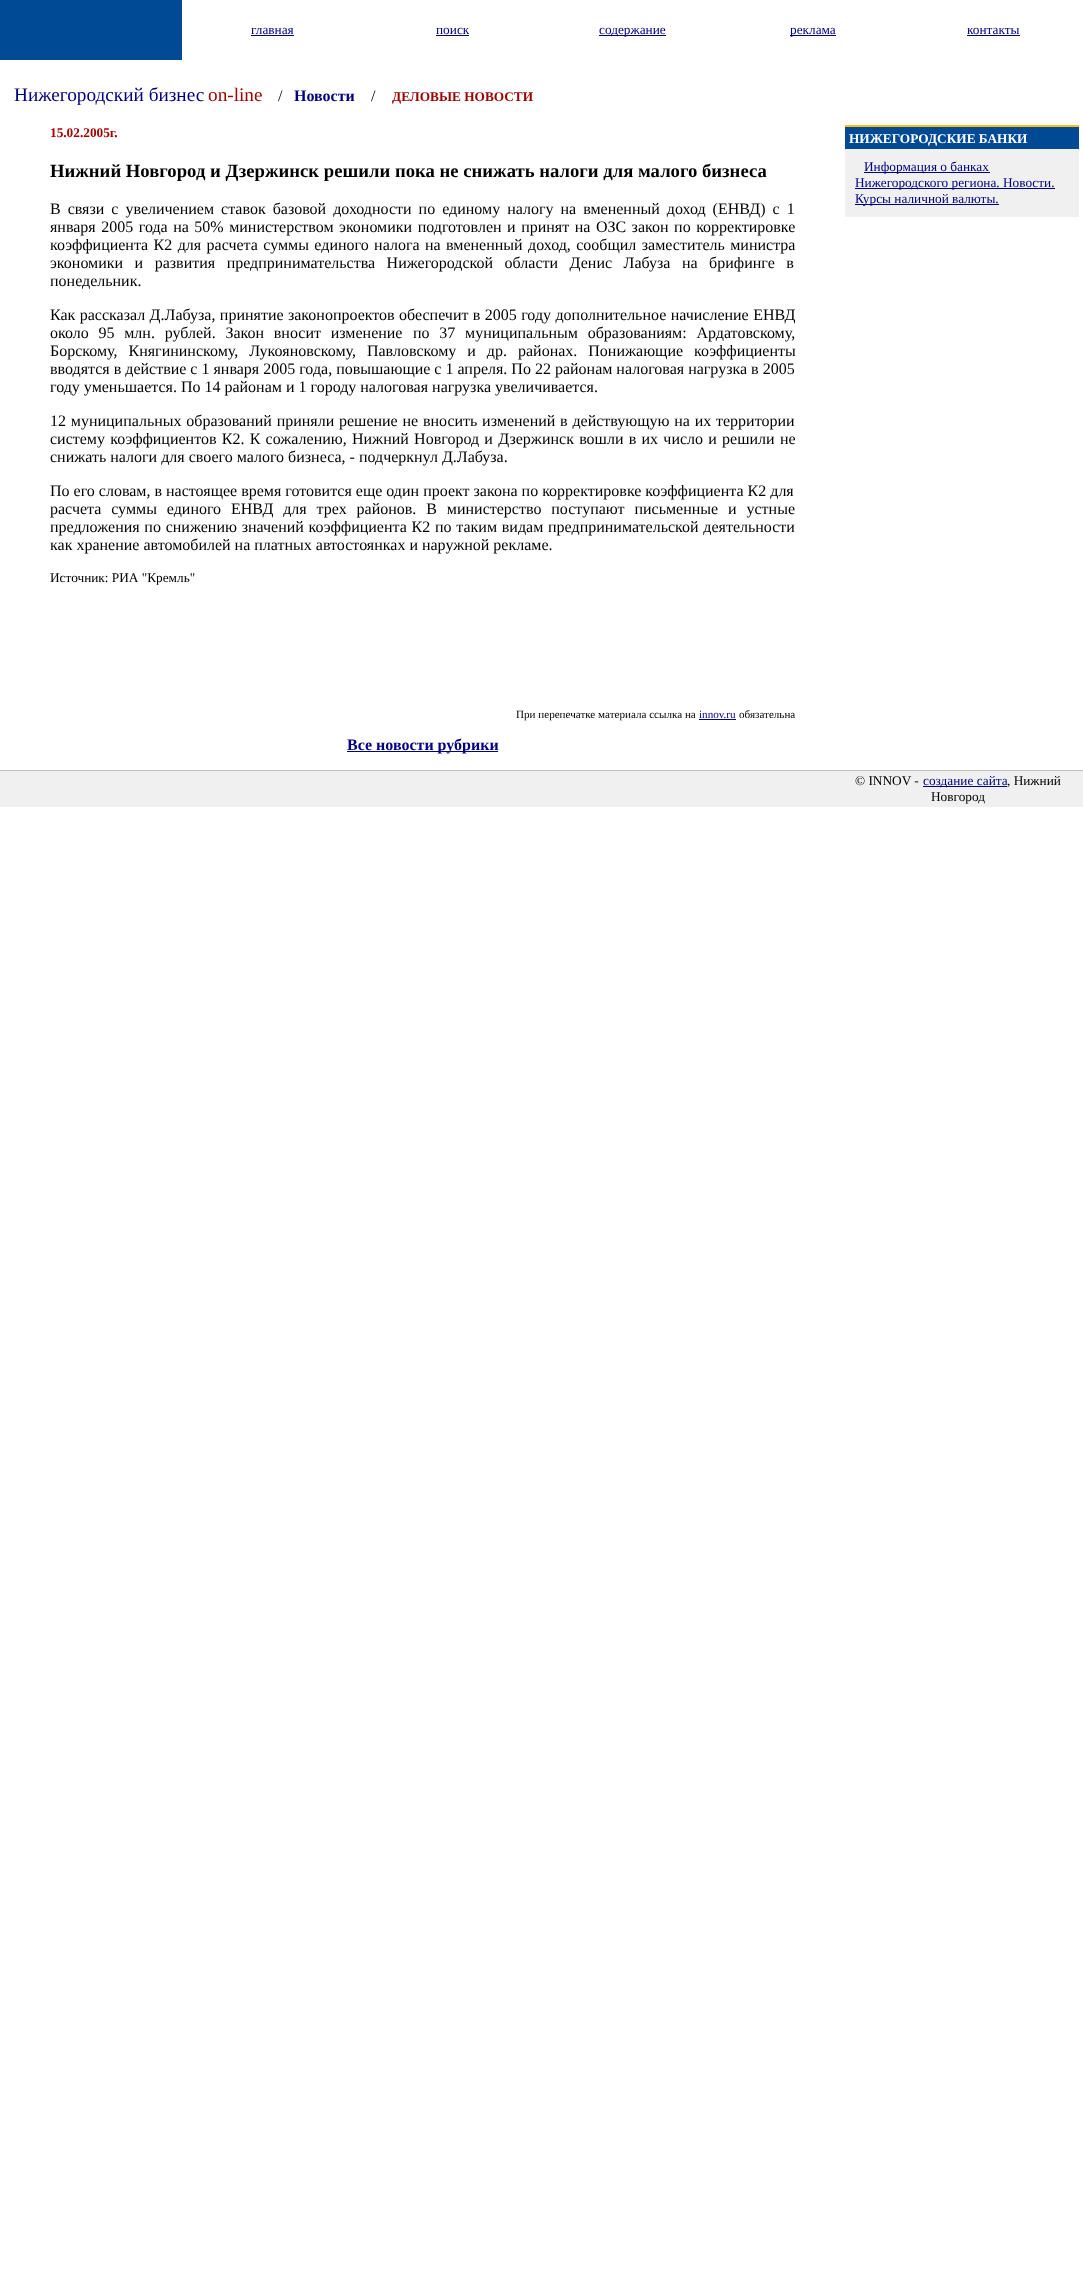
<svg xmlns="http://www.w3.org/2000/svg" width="1083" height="2285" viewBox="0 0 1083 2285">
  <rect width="100%" height="100%" fill="rgb(255,255,255)"/>
  <rect x="0" y="0" width="182" height="60" fill="rgb(0,74,149)"/>
  <text x="251" y="34" font-family="Liberation Serif" font-size="13.3" fill="rgb(0,0,128)">главная</text>
  <rect x="251" y="35" width="43" height="1" fill="rgb(0,0,128)"/>
  <text x="436" y="34" font-family="Liberation Serif" font-size="13.3" fill="rgb(0,0,128)">поиск</text>
  <rect x="436" y="35" width="33" height="1" fill="rgb(0,0,128)"/>
  <rect x="599" y="35" width="67" height="1" fill="rgb(0,0,128)"/>
  <text x="599" y="34" font-family="Liberation Serif" font-size="13.3" fill="rgb(0,0,128)">содержание</text>
  <rect x="790" y="35" width="46" height="1" fill="rgb(0,0,128)"/>
  <g font-family="Liberation Serif" font-size="13.3" fill="rgb(0,0,128)">
    <text x="790" y="34">реклама</text>
    <text x="967" y="34">контакты</text>
  </g>
  <rect x="967" y="35" width="53" height="1" fill="rgb(0,0,128)"/>
  <text x="14" y="101" font-family="Liberation Serif" font-size="19.25" fill="rgb(0,0,128)">Нижегородский бизнес</text>
  <text x="208" y="101" font-family="Liberation Serif" font-size="19.25" fill="rgb(155,0,0)">on-line</text>
  <text x="278" y="101" font-family="Liberation Serif" font-size="16" fill="rgb(0,0,0)">/</text>
  <text x="294" y="101" font-family="Liberation Serif" font-size="16" font-weight="bold" fill="rgb(0,0,128)">Новости</text>
  <text x="371" y="101" font-family="Liberation Serif" font-size="16" fill="rgb(0,0,0)">/</text>
  <text x="392" y="101" font-family="Liberation Serif" font-size="13.3" font-weight="bold" fill="rgb(155,0,0)">ДЕЛОВЫЕ НОВОСТИ</text>
  <text x="50" y="137" font-family="Liberation Serif" font-size="13.3" font-weight="bold" fill="rgb(164,0,0)">15.02.2005г.</text>
  <text x="50" y="177" font-family="Liberation Serif" font-size="18.7" font-weight="bold" fill="rgb(0,0,0)">Нижний Новгород и Дзержинск решили пока не снижать налоги для малого бизнеса</text>
  <g font-family="Liberation Serif" font-size="16" fill="rgb(0,0,0)">
    <text>
      <tspan x="50" y="214" word-spacing="3">В связи с увеличением ставок базовой доходности по единому налогу на вмененный доход (ЕНВД) с 1</tspan>
      <tspan x="50" y="232" word-spacing="1.5">января 2005 года на 50% министерством экономики подготовлен и принят на ОЗС закон по корректировке</tspan>
      <tspan x="50" y="250" word-spacing="1.4">коэффициента К2 для расчета суммы единого налога на вмененный доход, сообщил заместитель министра</tspan>
      <tspan x="50" y="268" word-spacing="7.5">экономики и развития предпринимательства Нижегородской области Денис Лабуза на брифинге в</tspan>
      <tspan x="50" y="286">понедельник.</tspan>
    </text>
    <text>
      <tspan x="50" y="320" word-spacing="0.4">Как рассказал Д.Лабуза, принятие законопроектов обеспечит в 2005 году дополнительное начисление ЕНВД</tspan>
      <tspan x="50" y="338" word-spacing="5.75">около 95 млн. рублей. Закон вносит изменение</tspan>
    </text>
    <text x="413" y="338" word-spacing="5.75">по 37 муниципальным образованиям: Ардатовскому,</text>
    <text>
      <tspan x="50" y="356" word-spacing="7">Борскому, Княгининскому, Лукояновскому, Павловскому и др. районах. Понижающие коэффициенты</tspan>
      <tspan x="50" y="374">вводятся в действие с 1 января 2005 года, повышающие с 1 апреля. По 22 районам налоговая нагрузка в 2005</tspan>
      <tspan x="50" y="392">году уменьшается. По 14 районам и 1 городу налоговая нагрузка увеличивается.</tspan>
    </text>
    <text>
      <tspan x="50" y="426" word-spacing="0.75">12 муниципальных образований приняли решение не вносить изменений в действующую на их территории</tspan>
      <tspan x="50" y="444" word-spacing="1.25">систему коэффициентов К2. К сожалению, Нижний Новгород и Дзержинск вошли в их число и решили не</tspan>
      <tspan x="50" y="462">снижать налоги для своего малого бизнеса, - подчеркнул Д.Лабуза.</tspan>
    </text>
    <text>
      <tspan x="50" y="496">По его словам, в настоящее время готовится еще один проект закона по корректировке коэффициента К2 для</tspan>
      <tspan x="50" y="514" word-spacing="5.9">расчета суммы единого ЕНВД для трех районов. В министерство поступают письменные и устные</tspan>
      <tspan x="50" y="532" word-spacing="0.75">предложения по снижению значений коэффициента К2 по таким видам предпринимательской деятельности</tspan>
      <tspan x="50" y="550">как хранение автомобилей на платных автостоянках и наружной рекламе.</tspan>
    </text>
  </g>
  <text x="50" y="582" font-family="Liberation Serif" font-size="13.3" fill="rgb(0,0,0)">Источник: РИА "Кремль"</text>
  <text x="516" y="718" font-family="Liberation Serif" font-size="11.1" fill="rgb(0,0,0)">При перепечатке материала ссылка на</text>
  <rect x="699" y="719" width="37" height="1" fill="rgb(0,0,128)"/>
  <text x="699" y="718" font-family="Liberation Serif" font-size="11.1" fill="rgb(0,0,128)">innov.ru</text>
  <text x="739" y="718" font-family="Liberation Serif" font-size="11.1" fill="rgb(0,0,0)">обязательна</text>
  <rect x="347" y="751" width="151" height="1" fill="rgb(0,0,128)"/>
  <text x="347" y="750" font-family="Liberation Serif" font-size="16" font-weight="bold" fill="rgb(0,0,128)">Все новости рубрики</text>
  <rect x="845" y="125" width="234" height="2" fill="rgb(255,191,21)"/>
  <rect x="845" y="127" width="234" height="22" fill="rgb(0,74,149)"/>
  <text x="849" y="143" font-family="Liberation Serif" font-size="13.3" font-weight="bold" fill="rgb(255,255,255)">НИЖЕГОРОДСКИЕ БАНКИ</text>
  <rect x="845" y="149" width="234" height="68" fill="rgb(240,240,240)"/>
  <rect x="864" y="172" width="126" height="1" fill="rgb(0,0,128)"/>
  <text x="864" y="171" font-family="Liberation Serif" font-size="13.3" fill="rgb(0,0,128)">Информация о банках</text>
  <rect x="855" y="188" width="200" height="1" fill="rgb(0,0,128)"/>
  <text x="855" y="187" font-family="Liberation Serif" font-size="13.3" fill="rgb(0,0,128)">Нижегородского региона. Новости.</text>
  <rect x="855" y="204" width="144" height="1" fill="rgb(0,0,128)"/>
  <text x="855" y="203" font-family="Liberation Serif" font-size="13.3" fill="rgb(0,0,128)">Курсы наличной валюты.</text>
  <rect x="0" y="771" width="1083" height="36" fill="rgb(240,240,240)"/>
  <rect x="0" y="770" width="1083" height="1" fill="rgb(192,192,192)"/>
  <text x="855" y="785" font-family="Liberation Serif" font-size="13.3" fill="rgb(0,0,0)">© INNOV -</text>
  <rect x="923" y="786" width="84" height="1" fill="rgb(0,0,128)"/>
  <text x="923" y="785" font-family="Liberation Serif" font-size="13.3" fill="rgb(0,0,128)">создание сайта</text>
  <g font-family="Liberation Serif" font-size="13.3" fill="rgb(0,0,0)">
    <text x="1007" y="785">, Нижний</text>
    <text x="931" y="801">Новгород</text>
  </g>
</svg>
